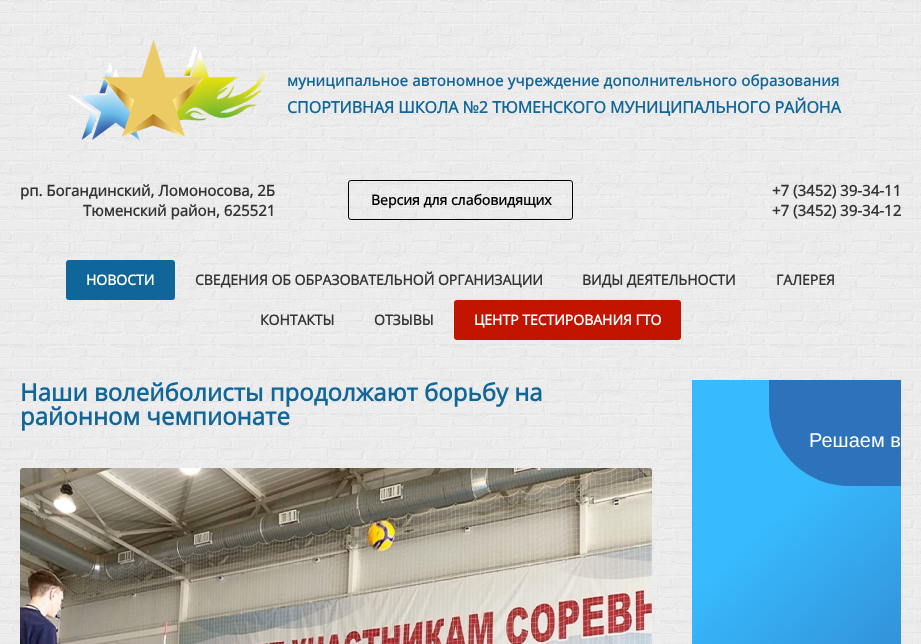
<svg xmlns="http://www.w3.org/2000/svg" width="921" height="644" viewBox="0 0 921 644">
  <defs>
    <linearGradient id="g1" gradientUnits="userSpaceOnUse" x1="637" y1="429" x2="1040" y2="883"><stop offset="0.26" stop-color="rgb(56,186,254)"/><stop offset="0.79" stop-color="rgb(45,115,188)"/></linearGradient>
  </defs>
  <rect width="100%" height="100%" fill="rgb(255,255,255)"/>
  <image x="0" y="0" width="921" height="644" href="pic1.png"/>
  <image x="68" y="40" width="199" height="100" href="pic2.png"/>
  <text x="287" y="86" font-family="Open Sans" font-size="15" font-weight="bold" letter-spacing="0.2" fill="rgb(17,102,153)">муниципальное автономное учреждение дополнительного образования</text>
  <text x="287" y="113" font-family="Open Sans" font-size="16" font-weight="bold" fill="rgb(17,102,153)">СПОРТИВНАЯ ШКОЛА №2 ТЮМЕНСКОГО МУНИЦИПАЛЬНОГО РАЙОНА</text>
  <g font-family="Open Sans" font-size="15" font-weight="bold" fill="rgb(51,51,51)">
    <text x="20" y="196">рп. Богандинский, Ломоносова, 2Б</text>
    <text x="83" y="216">Тюменский район, 625521</text>
  </g>
  <rect x="348.5" y="180.5" width="224" height="39" rx="2.5" fill="none" stroke="rgb(0,0,0)"/>
  <text x="371" y="205" font-family="Open Sans" font-size="14" font-weight="bold" fill="rgb(0,0,0)">Версия для слабовидящих</text>
  <g font-family="Open Sans" font-size="15" font-weight="bold" fill="rgb(51,51,51)">
    <text>
      <tspan x="772" y="196">+7 (3452) 39-34-11</tspan>
      <tspan x="772" y="216">+7 (3452) 39-34-12</tspan>
    </text>
  </g>
  <rect x="66" y="260" width="109" height="40" rx="3" fill="rgb(17,102,153)"/>
  <text x="86" y="285" font-family="Open Sans" font-size="14" font-weight="bold" fill="rgb(255,255,255)">НОВОСТИ</text>
  <g font-family="Open Sans" font-size="14" font-weight="bold" fill="rgb(51,51,51)">
    <text x="195" y="285">СВЕДЕНИЯ ОБ ОБРАЗОВАТЕЛЬНОЙ ОРГАНИЗАЦИИ</text>
    <text x="582" y="285">ВИДЫ ДЕЯТЕЛЬНОСТИ</text>
    <text x="776" y="285">ГАЛЕРЕЯ</text>
    <text x="260" y="325">КОНТАКТЫ</text>
    <text x="374" y="325">ОТЗЫВЫ</text>
  </g>
  <rect x="454" y="300" width="227" height="40" rx="3" fill="rgb(195,20,0)"/>
  <text x="474" y="325" font-family="Open Sans" font-size="14" font-weight="bold" fill="rgb(255,255,255)">ЦЕНТР ТЕСТИРОВАНИЯ ГТО</text>
  <g font-family="Open Sans" font-size="24" font-weight="bold" fill="rgb(17,102,153)">
    <text>
      <tspan x="20" y="401">Наши волейболисты продолжают борьбу на</tspan>
      <tspan x="20" y="425">районном чемпионате</tspan>
    </text>
  </g>
  <image x="20" y="468" width="632" height="176" href="pic3.png"/>
  <rect x="692" y="380" width="209" height="264" fill="url(#g1)"/>
  <path d="M769 380H901V486H849C805 486 769 450 769 406Z" fill="rgb(45,115,188)"/>
  <text x="809" y="447" font-family="Liberation Sans" font-size="20" fill="rgb(255,255,255)">Решаем в</text>
</svg>
